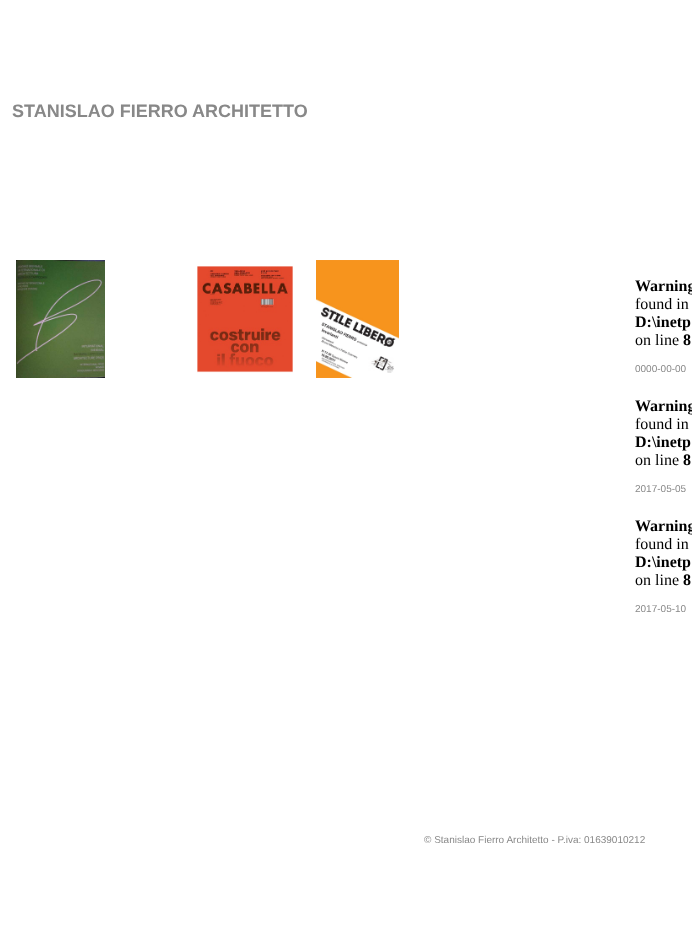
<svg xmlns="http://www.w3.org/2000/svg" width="692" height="948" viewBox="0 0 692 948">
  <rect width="100%" height="100%" fill="rgb(255,255,255)"/>
  <text x="12" y="117" font-family="Liberation Sans" font-size="18" font-weight="bold" fill="rgb(136,136,136)">STANISLAO FIERRO ARCHITETTO</text>
  <image x="16" y="260" width="89" height="118" href="pic1.png"/>
  <image x="197" y="266" width="96" height="107" href="pic2.png"/>
  <image x="316" y="260" width="83" height="118" href="pic3.png"/>
  <text x="635" y="291" font-family="Liberation Serif" font-size="16" font-weight="bold" fill="rgb(0,0,0)">Warning</text>
  <text x="635" y="309" font-family="Liberation Serif" font-size="16" fill="rgb(0,0,0)">found in</text>
  <text x="635" y="327" font-family="Liberation Serif" font-size="16" font-weight="bold" fill="rgb(0,0,0)">D:\inetp</text>
  <text x="635" y="345" font-family="Liberation Serif" font-size="16" fill="rgb(0,0,0)">on line</text>
  <text x="683" y="345" font-family="Liberation Serif" font-size="16" font-weight="bold" fill="rgb(0,0,0)">8</text>
  <text x="635" y="372" font-family="Liberation Sans" font-size="10" fill="rgb(136,136,136)">0000-00-00</text>
  <text x="635" y="411" font-family="Liberation Serif" font-size="16" font-weight="bold" fill="rgb(0,0,0)">Warning</text>
  <text x="635" y="429" font-family="Liberation Serif" font-size="16" fill="rgb(0,0,0)">found in</text>
  <text x="635" y="447" font-family="Liberation Serif" font-size="16" font-weight="bold" fill="rgb(0,0,0)">D:\inetp</text>
  <text x="635" y="465" font-family="Liberation Serif" font-size="16" fill="rgb(0,0,0)">on line</text>
  <text x="683" y="465" font-family="Liberation Serif" font-size="16" font-weight="bold" fill="rgb(0,0,0)">8</text>
  <text x="635" y="492" font-family="Liberation Sans" font-size="10" fill="rgb(136,136,136)">2017-05-05</text>
  <text x="635" y="531" font-family="Liberation Serif" font-size="16" font-weight="bold" fill="rgb(0,0,0)">Warning</text>
  <text x="635" y="549" font-family="Liberation Serif" font-size="16" fill="rgb(0,0,0)">found in</text>
  <text x="635" y="567" font-family="Liberation Serif" font-size="16" font-weight="bold" fill="rgb(0,0,0)">D:\inetp</text>
  <text x="635" y="585" font-family="Liberation Serif" font-size="16" fill="rgb(0,0,0)">on line</text>
  <text x="683" y="585" font-family="Liberation Serif" font-size="16" font-weight="bold" fill="rgb(0,0,0)">8</text>
  <g font-family="Liberation Sans" font-size="10" fill="rgb(136,136,136)">
    <text x="635" y="612">2017-05-10</text>
    <text x="424" y="843">© Stanislao Fierro Architetto - P.iva: 01639010212</text>
  </g>
</svg>
